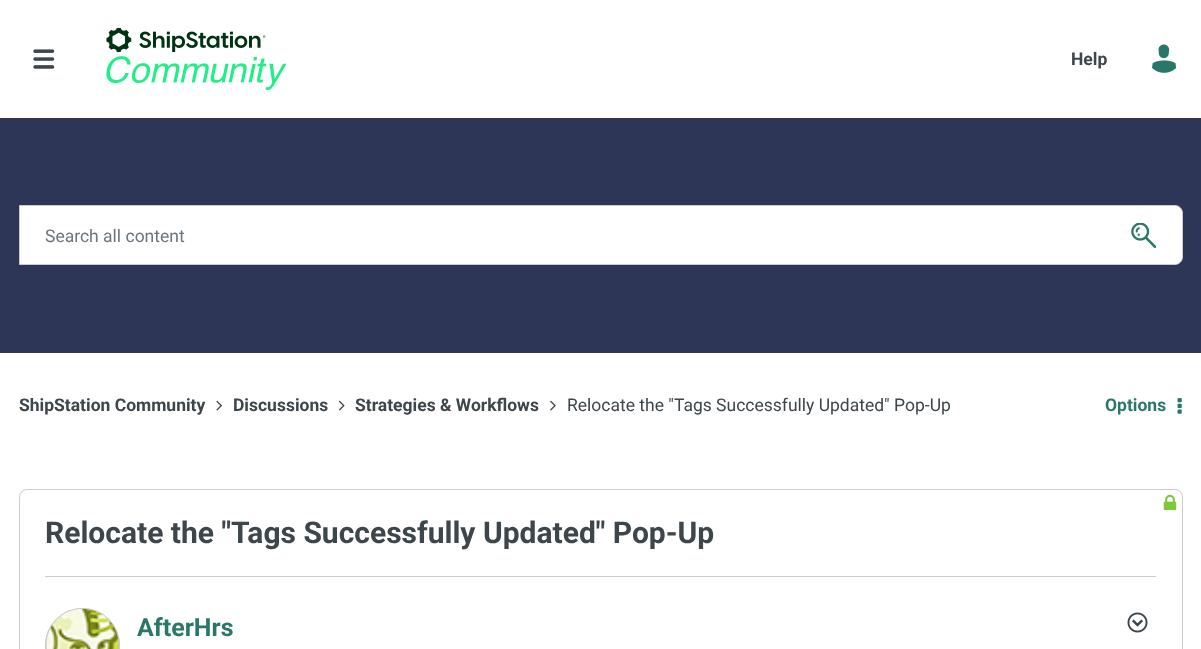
<svg xmlns="http://www.w3.org/2000/svg" width="1201" height="649" viewBox="0 0 1201 649">
  <rect width="100%" height="100%" fill="rgb(255,255,255)"/>
  <image x="33" y="49" width="22" height="20" href="pic1.png"/>
  <image x="106" y="28" width="181" height="62" href="pic2.png"/>
  <text x="1071" y="65" font-family="Roboto" font-size="17.5" font-weight="bold" fill="rgb(60,70,75)">Help</text>
  <image x="1152" y="44" width="25" height="29" href="pic3.png"/>
  <rect x="0" y="118" width="1201" height="235" fill="rgb(46,54,87)"/>
  <path d="M19.5 205.5H1175C1179 205.5 1182.5 209 1182.5 213V257C1182.5 261 1179 264.5 1175 264.5H19.5Z" fill="rgb(255,255,255)" stroke="rgb(204,204,204)"/>
  <text x="45" y="242" font-family="Roboto" font-size="17.5" fill="rgb(108,117,125)">Search all content</text>
  <image x="1131" y="223" width="25" height="25" href="pic4.png"/>
  <text x="19" y="411" font-family="Roboto" font-size="17.5" font-weight="bold" fill="rgb(60,70,75)">ShipStation Community</text>
  <image x="216" y="400" width="6" height="11" href="pic5.png"/>
  <text x="233" y="411" font-family="Roboto" font-size="17.5" font-weight="bold" fill="rgb(60,70,75)">Discussions</text>
  <image x="338" y="400" width="7" height="11" href="pic6.png"/>
  <text x="355" y="411" font-family="Roboto" font-size="17.5" font-weight="bold" fill="rgb(60,70,75)">Strategies &amp; Workflows</text>
  <image x="550" y="400" width="6" height="11" href="pic7.png"/>
  <text x="567" y="411" font-family="Roboto" font-size="17.5" fill="rgb(60,70,75)">Relocate the "Tags Successfully Updated" Pop-Up</text>
  <text x="1105" y="411" font-family="Roboto" font-size="17.5" font-weight="bold" fill="rgb(41,119,104)">Options</text>
  <image x="1177" y="398" width="5" height="16" href="pic8.png"/>
  <rect x="19.5" y="489.5" width="1163" height="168" rx="7.5" fill="none" stroke="rgb(204,204,204)"/>
  <image x="1163" y="494" width="14" height="16" href="pic9.png"/>
  <rect x="45" y="576" width="1111" height="1" fill="rgb(204,204,204)"/>
  <text x="45" y="543" font-family="Roboto" font-size="30" font-weight="bold" fill="rgb(60,70,75)">Relocate the "Tags Successfully Updated" Pop-Up</text>
  <rect x="45" y="608" width="75" height="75" rx="37.5" fill="rgb(196,196,196)" filter="blur(0.5px)"/>
  <circle cx="82.5" cy="645.5" r="37" fill="none" stroke="rgb(204,204,204)"/>
  <image x="46" y="608" width="73" height="41" href="pic10.png"/>
  <text x="137" y="636" font-family="Roboto" font-size="25" font-weight="bold" fill="rgb(41,119,104)">AfterHrs</text>
  <image x="1127" y="612" width="21" height="21" href="pic11.png"/>
</svg>
